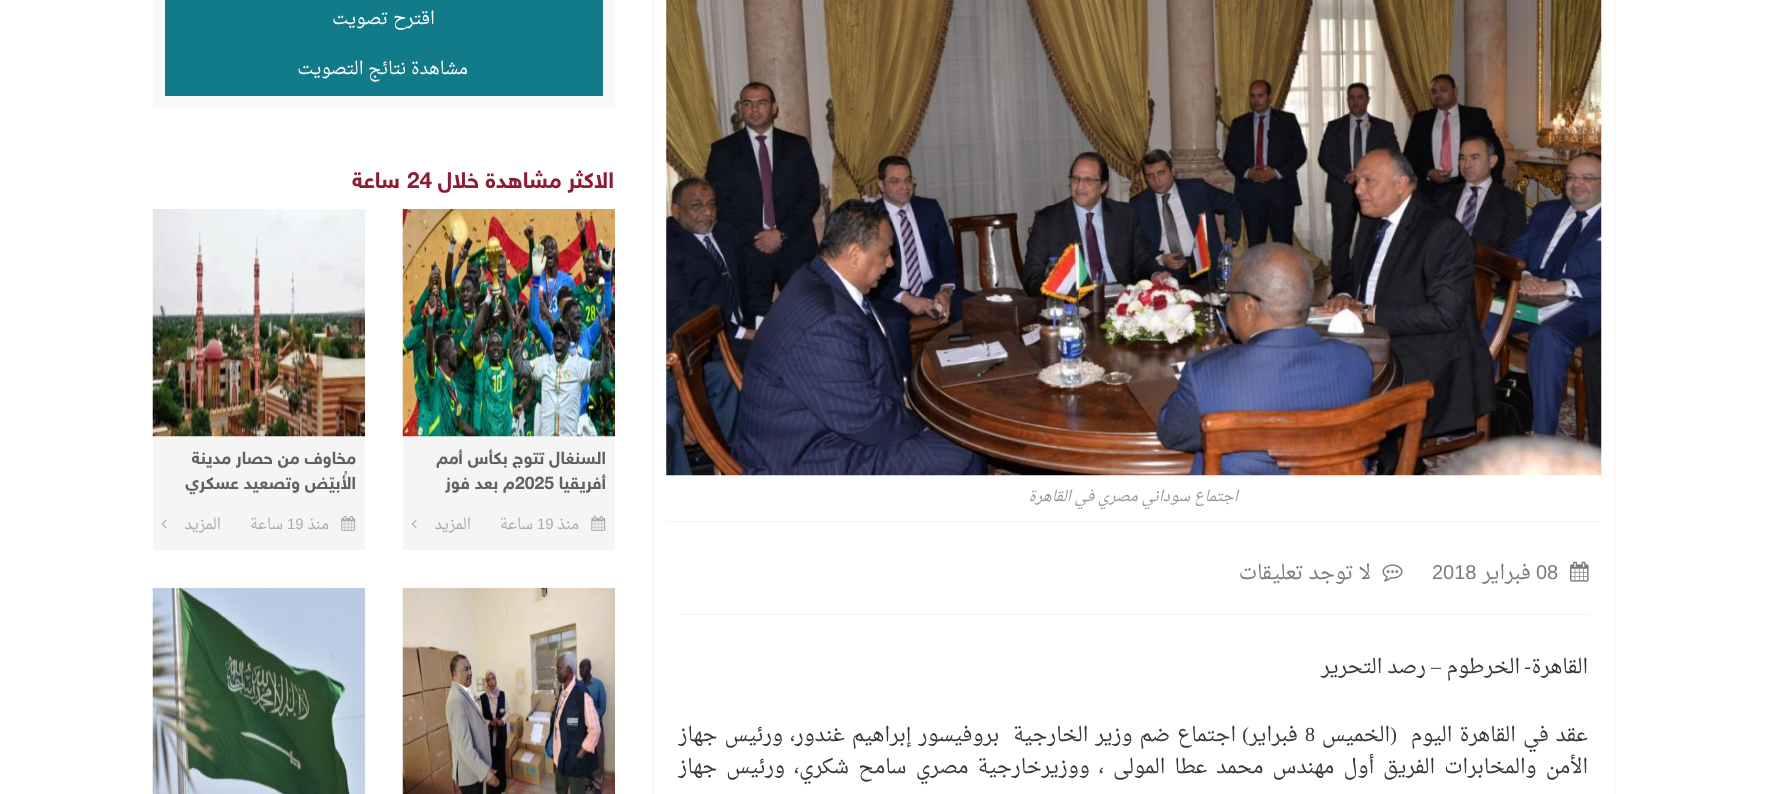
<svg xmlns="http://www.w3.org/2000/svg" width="1766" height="794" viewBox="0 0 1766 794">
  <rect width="100%" height="100%" fill="rgb(255,255,255)"/>
  <rect x="159.5" y="-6.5" width="449" height="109" fill="none" stroke="rgb(249,249,249)" stroke-width="13"/>
  <rect x="165" y="0" width="438" height="96" fill="rgb(18,123,138)"/>
  <g font-family="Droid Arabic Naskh" font-size="17.5" direction="rtl" fill="rgb(255,255,255)">
    <text x="435" y="24">اقترح تصويت</text>
    <text x="468" y="74">مشاهدة نتائج التصويت</text>
  </g>
  <text x="614" y="188" font-family="'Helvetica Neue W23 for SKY'" font-size="22.5" font-weight="bold" direction="rtl" fill="rgb(141,28,52)">الاكثر مشاهدة خلال</text>
  <text x="407" y="188" font-family="'Helvetica Neue W23 for SKY'" font-size="22.5" font-weight="bold" fill="rgb(141,28,52)">24</text>
  <text x="400" y="188" font-family="'Helvetica Neue W23 for SKY'" font-size="22.5" font-weight="bold" direction="rtl" fill="rgb(141,28,52)">ساعة</text>
  <rect x="403" y="436" width="212" height="114" fill="rgb(245,245,246)"/>
  <image x="402" y="209" width="213" height="228" href="pic1.png"/>
  <g font-family="'Helvetica Neue W23 for SKY'" font-size="17.5" font-weight="bold" direction="rtl" fill="rgb(97,97,97)">
    <text>
      <tspan x="606" y="464">السنغال تتوج بكأس أمم</tspan>
      <tspan x="606" y="489">أفريقيا</tspan>
    </text>
  </g>
  <text x="515" y="489" font-family="'Helvetica Neue W23 for SKY'" font-size="17.5" font-weight="bold" fill="rgb(97,97,97)">2025</text>
  <text x="515" y="489" font-family="'Helvetica Neue W23 for SKY'" font-size="17.5" font-weight="bold" direction="rtl" fill="rgb(97,97,97)">م بعد فوز</text>
  <image x="591" y="515" width="15" height="16" href="pic2.png"/>
  <text x="579" y="529" font-family="Droid Arabic Naskh" font-size="15" direction="rtl" fill="rgb(172,172,172)">منذ</text>
  <text x="537" y="529" font-family="Liberation Sans" font-size="15" fill="rgb(172,172,172)">19</text>
  <g font-family="Droid Arabic Naskh" font-size="15" direction="rtl" fill="rgb(172,172,172)">
    <text x="533" y="529">ساعة</text>
    <text x="471" y="529">المزيد</text>
  </g>
  <image x="411" y="519" width="6" height="9" href="pic3.png"/>
  <rect x="153" y="436" width="212" height="114" fill="rgb(245,245,246)"/>
  <image x="152" y="209" width="213" height="228" href="pic4.png"/>
  <g font-family="'Helvetica Neue W23 for SKY'" font-size="17.5" font-weight="bold" direction="rtl" fill="rgb(97,97,97)">
    <text>
      <tspan x="356" y="464">مخاوف من حصار مدينة</tspan>
      <tspan x="356" y="489">الأُبيّض وتصعيد عسكري</tspan>
    </text>
  </g>
  <image x="341" y="515" width="15" height="16" href="pic2.png"/>
  <text x="329" y="529" font-family="Droid Arabic Naskh" font-size="15" direction="rtl" fill="rgb(172,172,172)">منذ</text>
  <text x="287" y="529" font-family="Liberation Sans" font-size="15" fill="rgb(172,172,172)">19</text>
  <g font-family="Droid Arabic Naskh" font-size="15" direction="rtl" fill="rgb(172,172,172)">
    <text x="283" y="529">ساعة</text>
    <text x="221" y="529">المزيد</text>
  </g>
  <image x="161" y="519" width="6" height="9" href="pic3.png"/>
  <image x="402" y="587" width="213" height="207" href="pic5.png"/>
  <image x="152" y="587" width="213" height="207" href="pic6.png"/>
  <rect x="653.5" y="-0.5" width="961" height="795" fill="none" stroke="rgb(243,243,243)"/>
  <image x="666" y="0" width="936" height="476" href="pic7.png"/>
  <rect x="666" y="521" width="935" height="1" fill="rgb(243,243,243)"/>
  <text x="1238" y="501" font-family="Droid Arabic Naskh" font-size="15" font-style="italic" direction="rtl" fill="rgb(153,153,153)">اجتماع سوداني مصري في القاهرة</text>
  <rect x="679" y="614" width="910" height="1" fill="rgb(243,243,243)"/>
  <image x="1570" y="561" width="19" height="21" href="pic8.png"/>
  <text x="1536" y="579" font-family="Liberation Sans" font-size="20" fill="rgb(121,124,127)">08</text>
  <text x="1531" y="579" font-family="Droid Arabic Naskh" font-size="20" direction="rtl" fill="rgb(121,124,127)">فبراير</text>
  <text x="1432" y="579" font-family="Liberation Sans" font-size="20" fill="rgb(121,124,127)">2018</text>
  <image x="1382" y="564" width="21" height="18" href="pic9.png"/>
  <text x="1371" y="579" font-family="Droid Arabic Naskh" font-size="20" direction="rtl" fill="rgb(121,124,127)">لا توجد تعليقات</text>
  <text x="1588" y="673" font-family="Droid Arabic Naskh" font-size="20" direction="rtl" fill="rgb(55,55,55)">القاهرة</text>
  <text x="1531" y="673" font-family="Liberation Serif" font-size="20" direction="rtl" fill="rgb(55,55,55)">-</text>
  <text x="1520" y="673" font-family="Droid Arabic Naskh" font-size="20" direction="rtl" fill="rgb(55,55,55)">الخرطوم</text>
  <text x="1441" y="673" font-family="Liberation Serif" font-size="20" direction="rtl" fill="rgb(55,55,55)">–</text>
  <g font-family="Droid Arabic Naskh" font-size="20" direction="rtl" fill="rgb(55,55,55)">
    <text x="1426" y="673">رصد التحرير</text>
    <text x="1588" y="741" word-spacing="1.75">عقد في القاهرة اليوم</text>
  </g>
  <text x="1397" y="741" font-family="Liberation Serif" font-size="20" direction="rtl" fill="rgb(55,55,55)">(</text>
  <text x="1390" y="741" font-family="Droid Arabic Naskh" font-size="20" direction="rtl" fill="rgb(55,55,55)">الخميس</text>
  <text x="1305" y="741" font-family="Liberation Serif" font-size="20" fill="rgb(55,55,55)">8</text>
  <text x="1249" y="741" font-family="Liberation Serif" font-size="20" direction="rtl" fill="rgb(55,55,55)">)</text>
  <g font-family="Droid Arabic Naskh" font-size="20" direction="rtl" fill="rgb(55,55,55)">
    <text x="1298" y="741">فبراير</text>
    <text x="1236" y="741" word-spacing="1.75" xml:space="preserve">اجتماع ضم وزير الخارجية  بروفيسور إبراهيم غندور، ورئيس جهاز</text>
    <text x="1588" y="773" word-spacing="3.9">الأمن والمخابرات الفريق أول مهندس محمد عطا المولى ، ووزيرخارجية مصري سامح شكري، ورئيس جهاز</text>
  </g>
</svg>
